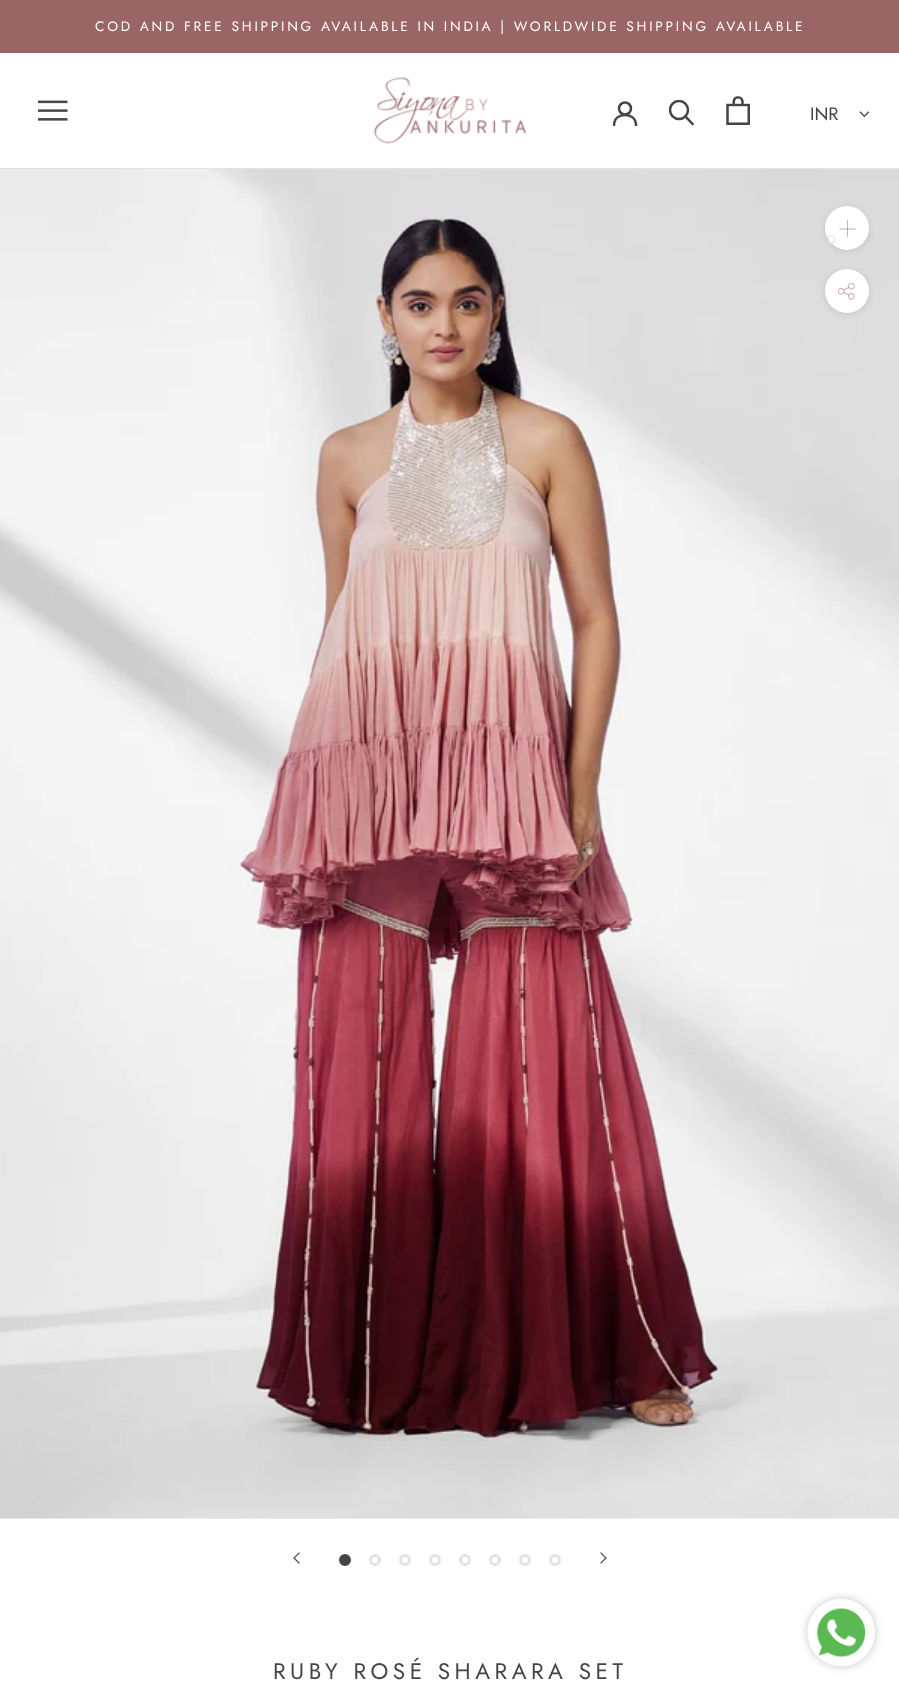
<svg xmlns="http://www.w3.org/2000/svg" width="899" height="1691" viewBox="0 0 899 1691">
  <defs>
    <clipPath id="clip1"><rect x="613" y="101" width="25" height="25"/></clipPath>
    <clipPath id="clip2"><rect x="669" y="100" width="26" height="26"/></clipPath>
    <clipPath id="clip3"><rect x="825" y="269" width="44" height="44" rx="22"/></clipPath>
  </defs>
  <rect width="100%" height="100%" fill="rgb(255,255,255)"/>
  <rect x="0" y="0" width="899" height="53" fill="rgb(154,101,101)"/>
  <text x="95" y="31" font-family="Jost" font-size="13.75" letter-spacing="2.75" fill="rgb(255,255,255)">COD AND FREE SHIPPING AVAILABLE IN INDIA | WORLDWIDE SHIPPING AVAILABLE</text>
  <rect x="0" y="168" width="899" height="1" fill="rgb(227,227,227)"/>
  <image x="38" y="100" width="30" height="21" href="pic1.png"/>
  <image x="373" y="77" width="154" height="67" href="pic2.png"/>
  <g clip-path="url(#clip1)">
    <path d="M614 125C614 111.5 636 111.5 636 125" fill="none" stroke="rgb(69,69,69)" stroke-width="2.5" stroke-linecap="square"/>
  </g>
  <circle cx="625" cy="108.5" r="6" fill="none" stroke="rgb(69,69,69)" stroke-width="2.5"/>
  <path d="M692.5 124L685.5 116.5" fill="none" stroke="rgb(69,69,69)" stroke-width="2.5" stroke-linecap="square"/>
  <g clip-path="url(#clip2)">
    <circle cx="679" cy="110" r="9" fill="none" stroke="rgb(69,69,69)" stroke-width="2.5"/>
  </g>
  <image x="726" y="96" width="24" height="29" href="pic3.png"/>
  <text x="810" y="120" font-family="Jost" font-size="18" fill="rgb(69,69,69)">INR</text>
  <image x="0" y="169" width="899" height="1350" href="pic5.png"/>
  <rect x="825" y="208" width="44" height="43" rx="21.5" fill="rgba(54,54,54,0.15)" filter="blur(3px)"/>
  <circle cx="847" cy="228" r="22" fill="rgb(255,255,255)"/>
  <text x="827" y="244" font-family="Jost" font-size="13" fill="rgb(229,229,229)">D</text>
  <image x="859" y="111" width="11" height="6" href="pic4.png"/>
  <rect x="847" y="220" width="1" height="17" fill="rgb(205,178,178)"/>
  <path d="M840 229H855" fill="none" stroke="rgba(154,101,101,0.5)" stroke-width="1.1" stroke-linecap="square"/>
  <rect x="825" y="270" width="44" height="44" rx="22" fill="rgba(54,54,54,0.15)" filter="blur(3px)"/>
  <circle cx="847" cy="291" r="22" fill="rgb(255,255,255)"/>
  <image x="838" y="283" width="17" height="17" href="pic6.png"/>
  <g clip-path="url(#clip3)">
    <path d="M854.5 310L839 325M854.5 325L839 310" fill="none" stroke="rgb(255,255,255)" stroke-width="1.1"/>
  </g>
  <path d="M299 1563L294 1558L299 1553" fill="none" stroke="rgb(69,69,69)" stroke-width="1.2" stroke-linecap="square"/>
  <circle cx="345" cy="1560" r="4.5" fill="rgb(69,69,69)" stroke="rgb(69,69,69)" stroke-width="3"/>
  <circle cx="375" cy="1560" r="4.5" fill="none" stroke="rgb(227,227,227)" stroke-width="3"/>
  <circle cx="405" cy="1560" r="4.5" fill="none" stroke="rgb(227,227,227)" stroke-width="3"/>
  <circle cx="435" cy="1560" r="4.5" fill="none" stroke="rgb(227,227,227)" stroke-width="3"/>
  <circle cx="465" cy="1560" r="4.5" fill="none" stroke="rgb(227,227,227)" stroke-width="3"/>
  <circle cx="495" cy="1560" r="4.5" fill="none" stroke="rgb(227,227,227)" stroke-width="3"/>
  <circle cx="525" cy="1560" r="4.5" fill="none" stroke="rgb(227,227,227)" stroke-width="3"/>
  <circle cx="555" cy="1560" r="4.5" fill="none" stroke="rgb(227,227,227)" stroke-width="3"/>
  <path d="M601 1563L606 1558L601 1553" fill="none" stroke="rgb(69,69,69)" stroke-width="1.2" stroke-linecap="square"/>
  <text x="273" y="1679" font-family="Jost" font-size="22.5" letter-spacing="4.5" fill="rgb(69,69,69)">RUBY ROSÉ SHARARA SET</text>
  <rect x="808" y="1599" width="67" height="67" rx="33.5" fill="rgb(194,194,194)" filter="blur(5px)"/>
  <image x="807" y="1598" width="68" height="69" href="pic7.png"/>
</svg>
